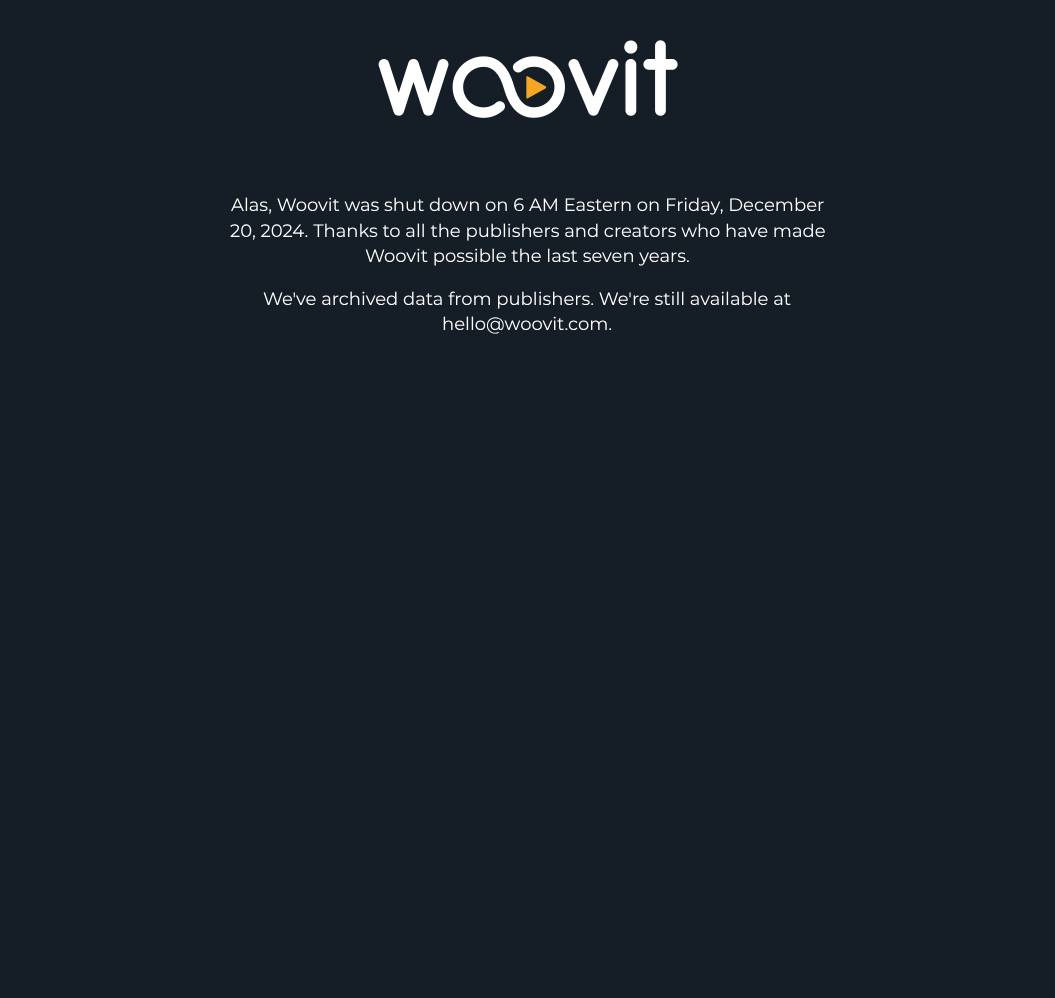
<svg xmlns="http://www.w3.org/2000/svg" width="1055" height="998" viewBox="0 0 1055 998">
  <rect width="100%" height="100%" fill="rgb(21,29,39)"/>
  <image x="378" y="40" width="300" height="78" href="pic1.png"/>
  <g font-family="Montserrat" font-size="18" fill="rgb(255,255,255)">
    <text x="231" y="211">Alas, Woovit was shut down on 6 AM Eastern on Friday, December</text>
    <text x="230" y="237">20, 2024. Thanks to all the publishers and creators who have made</text>
    <text x="365" y="262">Woovit possible the last seven years.</text>
    <text x="263" y="305">We've archived data from publishers. We're still available at</text>
    <text x="442" y="330">hello@woovit.com.</text>
  </g>
</svg>
